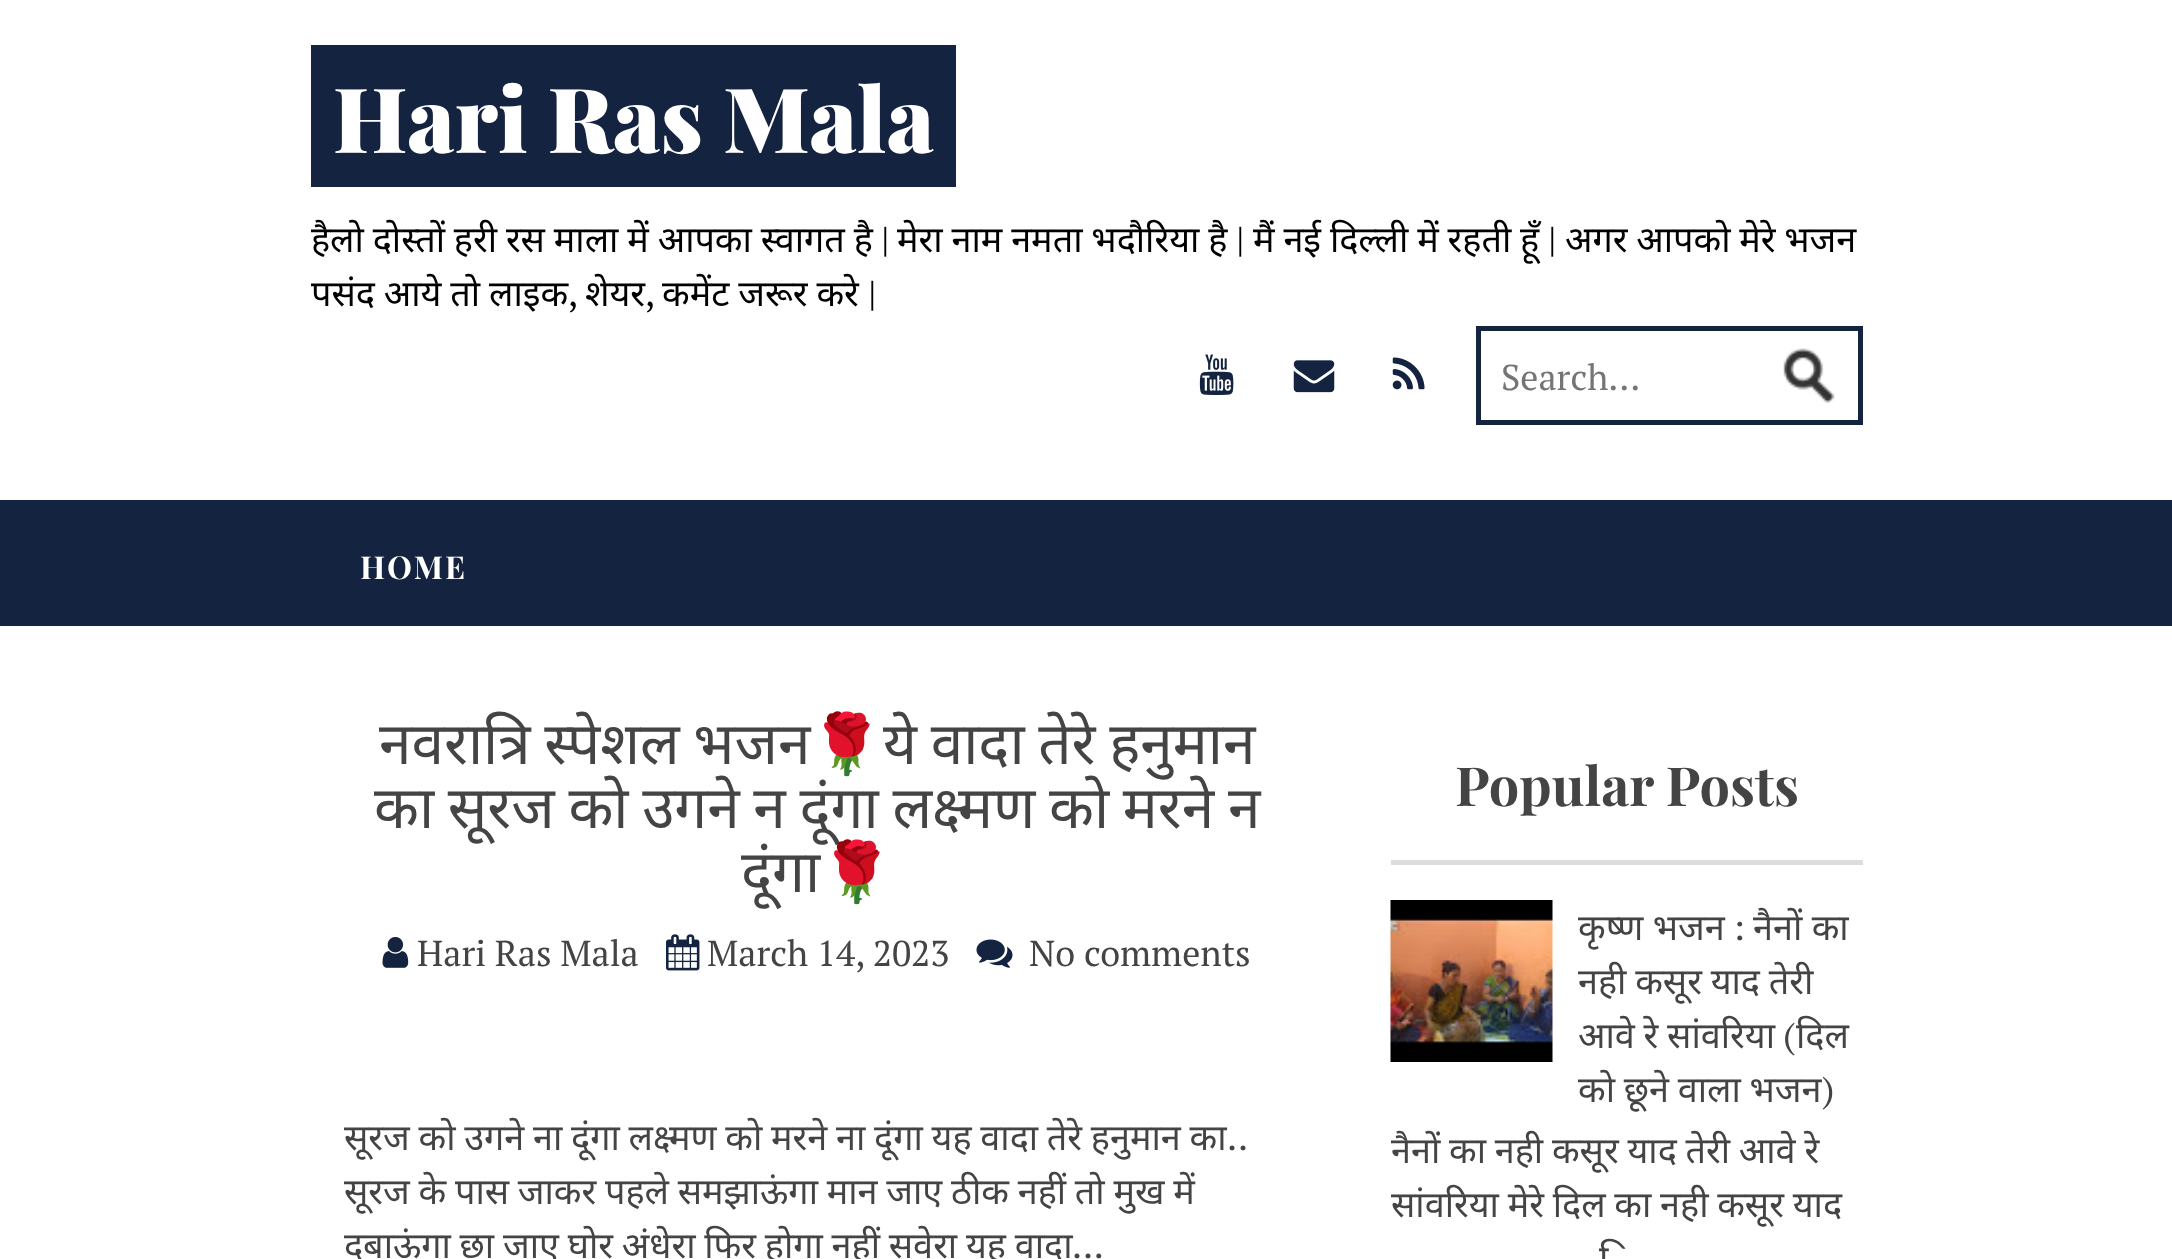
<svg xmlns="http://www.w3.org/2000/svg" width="2172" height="1259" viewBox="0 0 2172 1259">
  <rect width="100%" height="100%" fill="rgb(255,255,255)"/>
  <rect x="311" y="45" width="645" height="142" fill="rgb(20,35,63)"/>
  <text x="333" y="153" font-family="Playfair Display" font-size="90" font-weight="900" fill="rgb(255,255,255)">Hari Ras Mala</text>
  <text x="311" y="252" word-spacing="-0.5" font-family="Noto Sans" font-size="36" fill="rgb(0,0,0)">हैलो दोस्तों हरी रस माला में आपका स्वागत है</text>
  <text x="881" y="252" font-family="PT Serif" font-size="36" fill="rgb(0,0,0)">|</text>
  <text x="897" y="252" word-spacing="-0.5" font-family="Noto Sans" font-size="36" fill="rgb(0,0,0)">मेरा नाम नमता भदौरिया है</text>
  <text x="1236" y="252" font-family="PT Serif" font-size="36" fill="rgb(0,0,0)">|</text>
  <g font-family="Noto Sans" font-size="36" fill="rgb(0,0,0)">
    <text x="1253" y="252" word-spacing="-0.5">मैं नई दिल्ली में रहती हूँ</text>
    <text x="1565" y="252" word-spacing="-0.6">अगर आपको मेरे भजन</text>
  </g>
  <text x="1548" y="252" font-family="PT Serif" font-size="36" fill="rgb(0,0,0)">|</text>
  <text x="311" y="306" word-spacing="-0.5" font-family="Noto Sans" font-size="36" fill="rgb(0,0,0)">पसंद आये तो लाइक</text>
  <text x="568" y="306" font-family="PT Serif" font-size="36" fill="rgb(0,0,0)">,</text>
  <g font-family="Noto Sans" font-size="36" fill="rgb(0,0,0)">
    <text x="585" y="306">शेयर</text>
    <text x="662" y="306" word-spacing="-0.5">कमेंट जरूर करे</text>
  </g>
  <g font-family="PT Serif" font-size="36" fill="rgb(0,0,0)">
    <text x="868" y="306">|</text>
    <text x="645" y="306">,</text>
  </g>
  <image x="1199" y="354" width="35" height="41" href="pic1.png"/>
  <image x="1293" y="360" width="42" height="33" href="pic2.png"/>
  <image x="1392" y="357" width="33" height="33" href="pic3.png"/>
  <rect x="1478.5" y="328.5" width="382" height="94" fill="none" stroke="rgb(20,35,63)" stroke-width="5"/>
  <text x="1501" y="390" font-family="PT Serif" font-size="36" fill="rgb(117,117,117)">Search...</text>
  <image x="1783" y="348" width="52" height="55" href="pic4.png"/>
  <rect x="0" y="500" width="2172" height="126" fill="rgb(20,35,63)"/>
  <text x="360" y="579" font-family="Playfair Display" font-size="31.5" font-weight="bold" letter-spacing="2" fill="rgb(255,255,255)">HOME</text>
  <text x="379" y="764" word-spacing="-1.5" font-family="Noto Sans" font-size="58.5" fill="rgb(68,68,68)">नवरात्रि स्पेशल भजन</text>
  <text x="810" y="764" font-family="Noto Color Emoji" font-size="58.5" font-weight="bold" fill="rgb(68,68,68)">🌹</text>
  <g font-family="Noto Sans" font-size="58.5" fill="rgb(68,68,68)">
    <text x="883" y="764" word-spacing="-1.5">ये वादा तेरे हनुमान</text>
    <text x="374" y="828" word-spacing="-1.5">का सूरज को उगने न दूंगा लक्ष्मण को मरने न</text>
    <text x="741" y="892">दूंगा</text>
  </g>
  <text x="820" y="892" font-family="Noto Color Emoji" font-size="58.5" font-weight="bold" fill="rgb(68,68,68)">🌹</text>
  <image x="382" y="937" width="27" height="31" href="pic5.png"/>
  <text x="417" y="966" font-family="PT Serif" font-size="36" fill="rgb(68,68,68)">Hari Ras Mala</text>
  <image x="666" y="934" width="34" height="37" href="pic6.png"/>
  <text x="707" y="966" font-family="PT Serif" font-size="36" fill="rgb(68,68,68)">March 14, 2023</text>
  <image x="976" y="939" width="37" height="29" href="pic7.png"/>
  <text x="1029" y="966" font-family="PT Serif" font-size="36" fill="rgb(68,68,68)">No comments</text>
  <text x="344" y="1150" word-spacing="-0.6" font-family="Noto Sans" font-size="36" fill="rgb(68,68,68)">सूरज को उगने ना दूंगा लक्ष्मण को मरने ना दूंगा यह वादा तेरे हनुमान का</text>
  <text x="1227" y="1150" font-family="PT Serif" font-size="36" fill="rgb(68,68,68)">..</text>
  <g font-family="Noto Sans" font-size="36" fill="rgb(68,68,68)">
    <text>
      <tspan x="344" y="1204" word-spacing="-0.6">सूरज के पास जाकर पहले समझाऊंगा मान जाए ठीक नहीं तो मुख में</tspan>
      <tspan x="344" y="1258" word-spacing="-0.6">दबाऊंगा छा</tspan>
    </text>
    <text x="503" y="1258" word-spacing="-0.6">जाए घोर अंधेरा फिर होगा नहीं सवेरा यह वादा</text>
  </g>
  <text x="1072" y="1258" font-family="PT Serif" font-size="36" fill="rgb(68,68,68)">...</text>
  <rect x="1391" y="860" width="472" height="5" fill="rgb(221,221,221)"/>
  <text x="1455" y="806" font-family="Playfair Display" font-size="54" font-weight="bold" fill="rgb(68,68,68)">Popular Posts</text>
  <image x="1390" y="900" width="163" height="162" href="pic8.png"/>
  <text x="1578" y="940" font-family="Noto Sans" font-size="36" fill="rgb(68,68,68)">कृष्ण भजन</text>
  <text x="1733" y="940" font-family="PT Serif" font-size="36" fill="rgb(68,68,68)">:</text>
  <g font-family="Noto Sans" font-size="36" fill="rgb(68,68,68)">
    <text x="1753" y="940">नैनों का</text>
    <text>
      <tspan x="1578" y="994" word-spacing="-0.6">नही कसूर याद तेरी</tspan>
      <tspan x="1578" y="1048" word-spacing="-0.6">आवे रे सांवरिया</tspan>
    </text>
  </g>
  <text x="1783" y="1048" font-family="PT Serif" font-size="36" fill="rgb(68,68,68)">(</text>
  <g font-family="Noto Sans" font-size="36" fill="rgb(68,68,68)">
    <text x="1796" y="1048">दिल</text>
    <text x="1578" y="1102" word-spacing="-0.6">को छूने वाला भजन</text>
  </g>
  <text x="1822" y="1102" font-family="PT Serif" font-size="36" fill="rgb(68,68,68)">)</text>
  <g font-family="Noto Sans" font-size="36" fill="rgb(68,68,68)">
    <text>
      <tspan x="1391" y="1163" word-spacing="-0.6">नैनों का नही कसूर याद तेरी आवे रे</tspan>
      <tspan x="1391" y="1217" word-spacing="-0.6">सांवरिया मेरे दिल का नही कसूर याद</tspan>
    </text>
    <text x="1599" y="1271" word-spacing="-0.6">ि</text>
  </g>
</svg>
